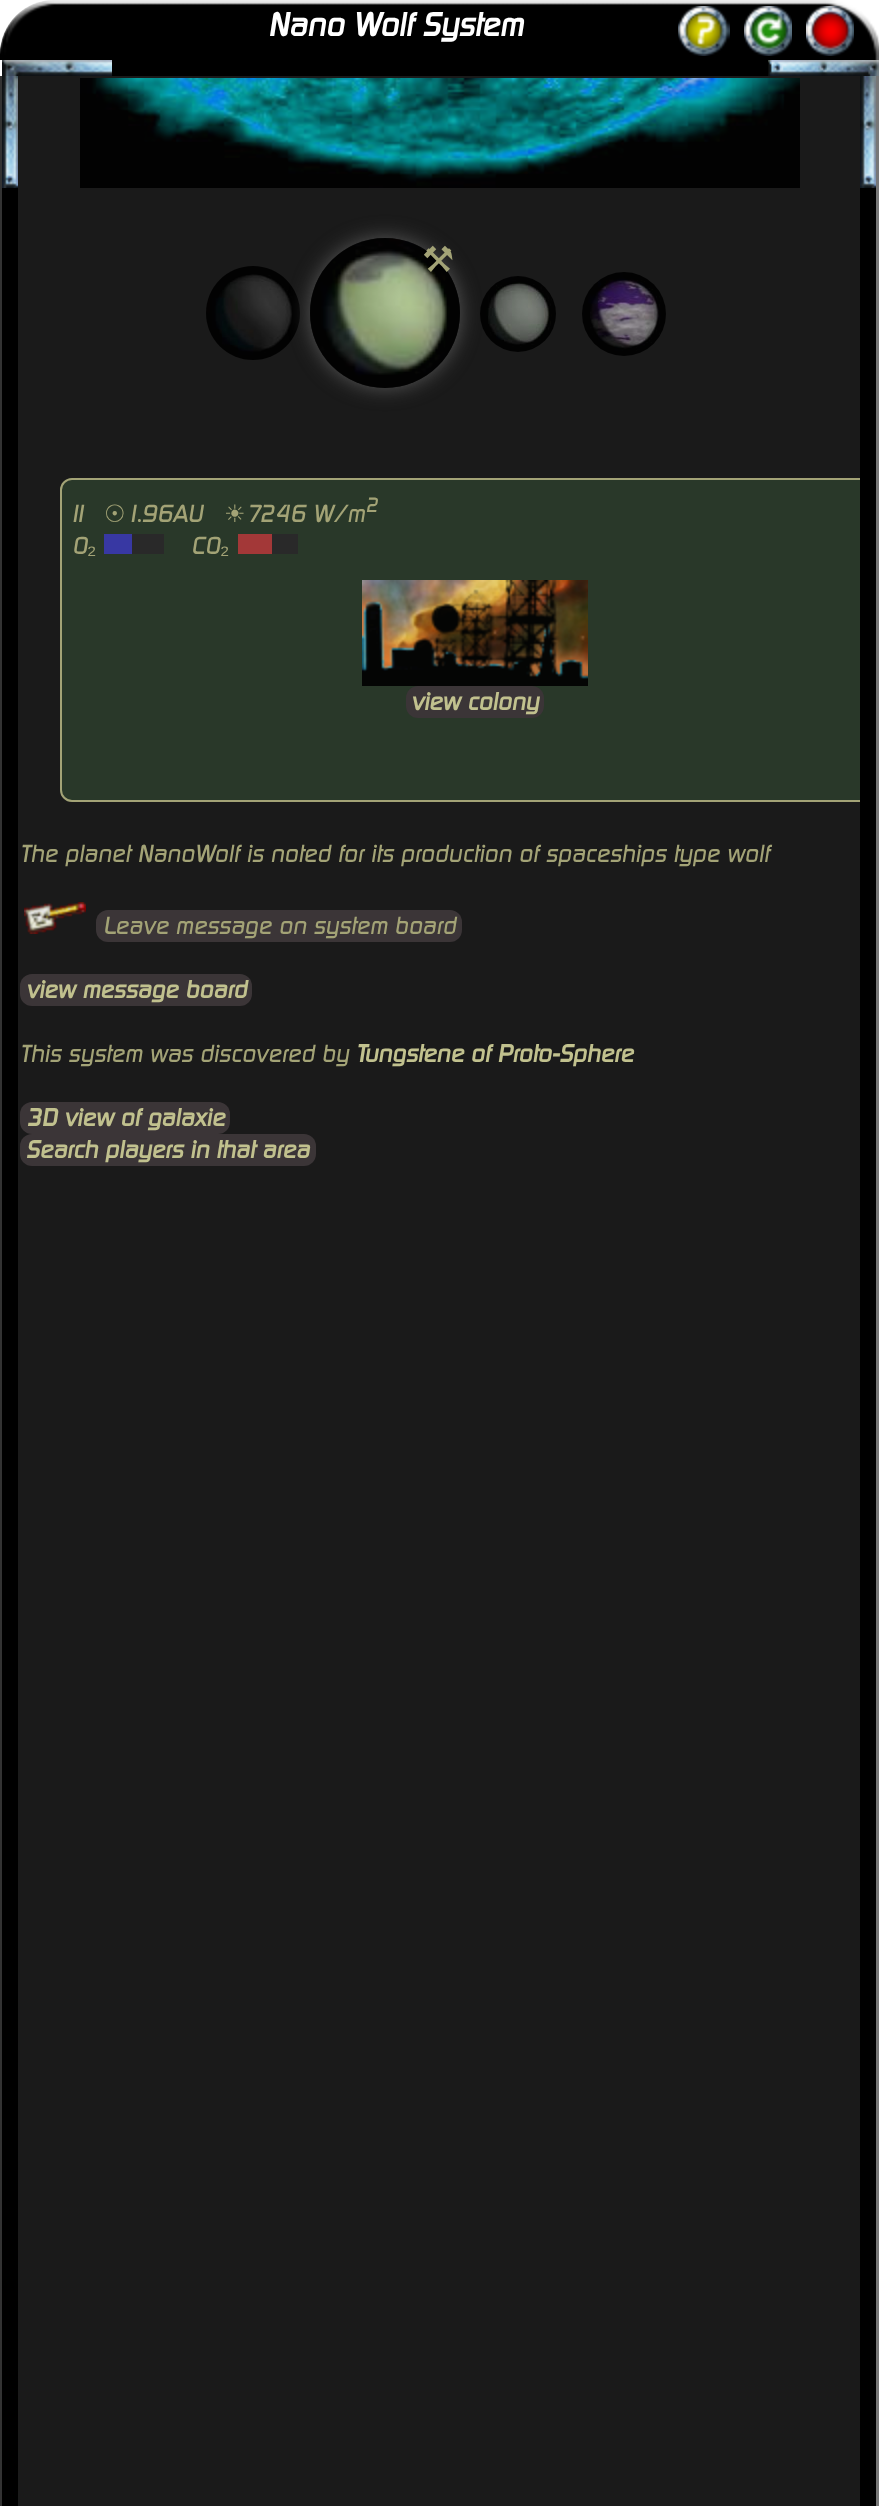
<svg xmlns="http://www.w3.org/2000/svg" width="879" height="2506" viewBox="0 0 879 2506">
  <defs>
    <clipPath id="clip1"><path d="M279 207H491V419H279ZM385 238C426.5 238 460 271.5 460 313C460 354.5 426.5 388 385 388C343.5 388 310 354.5 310 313C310 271.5 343.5 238 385 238Z" clip-rule="evenodd"/></clipPath>
    <clipPath id="clip2"><rect x="18" y="76" width="842" height="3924"/></clipPath>
  </defs>
  <rect width="100%" height="100%" fill="rgb(255,255,255)"/>
  <image x="0" y="0" width="54" height="60" href="pic1.png"/>
  <rect x="54" y="5" width="772" height="55" fill="rgb(0,0,0)"/>
  <image x="54" y="0" width="772" height="5" href="pic2.png"/>
  <image x="826" y="0" width="53" height="60" href="pic3.png"/>
  <text x="268" y="36" font-family="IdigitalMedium" font-size="32" font-weight="bold" fill="rgb(255,255,255)">Nano Wolf System</text>
  <image x="678" y="6" width="52" height="50" href="pic4.png"/>
  <image x="744" y="6" width="48" height="50" href="pic5.png"/>
  <image x="806" y="6" width="48" height="50" href="pic6.png"/>
  <image x="2" y="60" width="110" height="16" href="pic7.png"/>
  <rect x="112" y="60" width="656" height="16" fill="rgb(0,0,0)"/>
  <image x="768" y="60" width="111" height="16" href="pic8.png"/>
  <rect x="2" y="188" width="16" height="2318" fill="rgb(0,0,0)"/>
  <image x="2" y="76" width="16" height="112" href="pic9.png"/>
  <rect x="0" y="76" width="2" height="2430" fill="rgb(51,51,51)"/>
  <rect x="18" y="76" width="842" height="2430" fill="rgb(26,26,26)"/>
  <image x="80" y="78" width="720" height="110" href="pic10.png"/>
  <image x="206" y="266" width="94" height="94" href="pic12.png"/>
  <g clip-path="url(#clip1)">
    <rect x="310" y="238" width="150" height="150" rx="75" fill="rgb(87,87,87)" filter="blur(10px)"/>
  </g>
  <image x="310" y="238" width="150" height="150" href="pic11.png"/>
  <text x="422" y="272" font-family="DejaVu Sans" font-size="36" fill="rgb(163,163,118)">⚒</text>
  <image x="480" y="276" width="76" height="76" href="pic13.png"/>
  <image x="582" y="272" width="84" height="84" href="pic14.png"/>
  <path d="M72 478H860V802H72C65.5 802 60 796.5 60 790V490C60 483.5 65.5 478 72 478Z" fill="rgb(41,56,41)"/>
  <rect x="860" y="188" width="16" height="2318" fill="rgb(0,0,0)"/>
  <rect x="876" y="76" width="3" height="2430" fill="rgb(119,119,119)"/>
  <g clip-path="url(#clip2)">
    <rect x="61" y="479" width="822" height="322" rx="11" fill="none" stroke="rgb(163,163,118)" stroke-width="2"/>
  </g>
  <text x="72" y="522" font-family="IdigitalMedium" font-size="24" font-weight="500" fill="rgb(163,163,118)">II</text>
  <text x="104" y="522" font-family="DejaVu Sans" font-size="24" fill="rgb(163,163,118)">☉</text>
  <text x="125" y="522" font-family="IdigitalMedium" font-size="24" font-weight="500" fill="rgb(163,163,118)">1.96AU</text>
  <text x="224" y="522" font-family="DejaVu Sans" font-size="24" fill="rgb(163,163,118)">☀</text>
  <text x="246" y="522" font-family="IdigitalMedium" font-size="24" font-weight="500" fill="rgb(163,163,118)">7246 W/m</text>
  <text x="365" y="512" font-family="IdigitalMedium" font-size="20" font-weight="500" fill="rgb(163,163,118)">2</text>
  <text x="72" y="554" font-family="IdigitalMedium" font-size="24" font-weight="500" fill="rgb(163,163,118)">O</text>
  <text x="87" y="554" font-family="Liberation Sans" font-size="24" fill="rgb(163,163,118)">₂</text>
  <rect x="104" y="534" width="28" height="20" fill="rgb(56,56,163)"/>
  <rect x="132" y="534" width="32" height="20" fill="rgb(41,41,41)"/>
  <text x="191" y="554" font-family="IdigitalMedium" font-size="24" font-weight="500" fill="rgb(163,163,118)">CO</text>
  <text x="220" y="554" font-family="Liberation Sans" font-size="24" fill="rgb(163,163,118)">₂</text>
  <rect x="238" y="534" width="34" height="20" fill="rgb(163,56,56)"/>
  <rect x="272" y="534" width="26" height="20" fill="rgb(41,41,41)"/>
  <image x="362" y="580" width="226" height="106" href="pic15.png"/>
  <rect x="406" y="686" width="138" height="32" rx="12" fill="rgb(59,53,55)"/>
  <text x="411" y="710" font-family="IdigitalMedium" font-size="24" font-weight="bold" fill="rgb(193,193,142)">view colony</text>
  <text x="20" y="862" font-family="IdigitalMedium" font-size="24" font-weight="500" fill="rgb(163,163,118)">The planet NanoWolf is noted for its production of spaceships type wolf</text>
  <image x="24" y="902" width="62" height="32" href="pic16.png"/>
  <rect x="96" y="910" width="366" height="32" rx="12" fill="rgb(59,53,55)"/>
  <text x="103" y="934" font-family="IdigitalMedium" font-size="24" font-weight="500" fill="rgb(163,163,118)">Leave message on system board</text>
  <rect x="20" y="974" width="232" height="32" rx="12" fill="rgb(59,53,55)"/>
  <text x="26" y="998" font-family="IdigitalMedium" font-size="24" font-weight="bold" fill="rgb(193,193,142)">view message board</text>
  <text x="20" y="1062" font-family="IdigitalMedium" font-size="24" font-weight="500" fill="rgb(163,163,118)">This system was discovered by</text>
  <text x="356" y="1062" font-family="IdigitalMedium" font-size="24" font-weight="bold" fill="rgb(193,193,142)">Tungstene of Proto-Sphere</text>
  <rect x="20" y="1102" width="210" height="32" rx="12" fill="rgb(59,53,55)"/>
  <text x="26" y="1126" font-family="IdigitalMedium" font-size="24" font-weight="bold" fill="rgb(193,193,142)">3D view of galaxie</text>
  <rect x="20" y="1134" width="296" height="32" rx="12" fill="rgb(59,53,55)"/>
  <text x="26" y="1158" font-family="IdigitalMedium" font-size="24" font-weight="bold" fill="rgb(193,193,142)">Search players in that area</text>
  <image x="860" y="76" width="16" height="112" href="pic17.png"/>
</svg>
